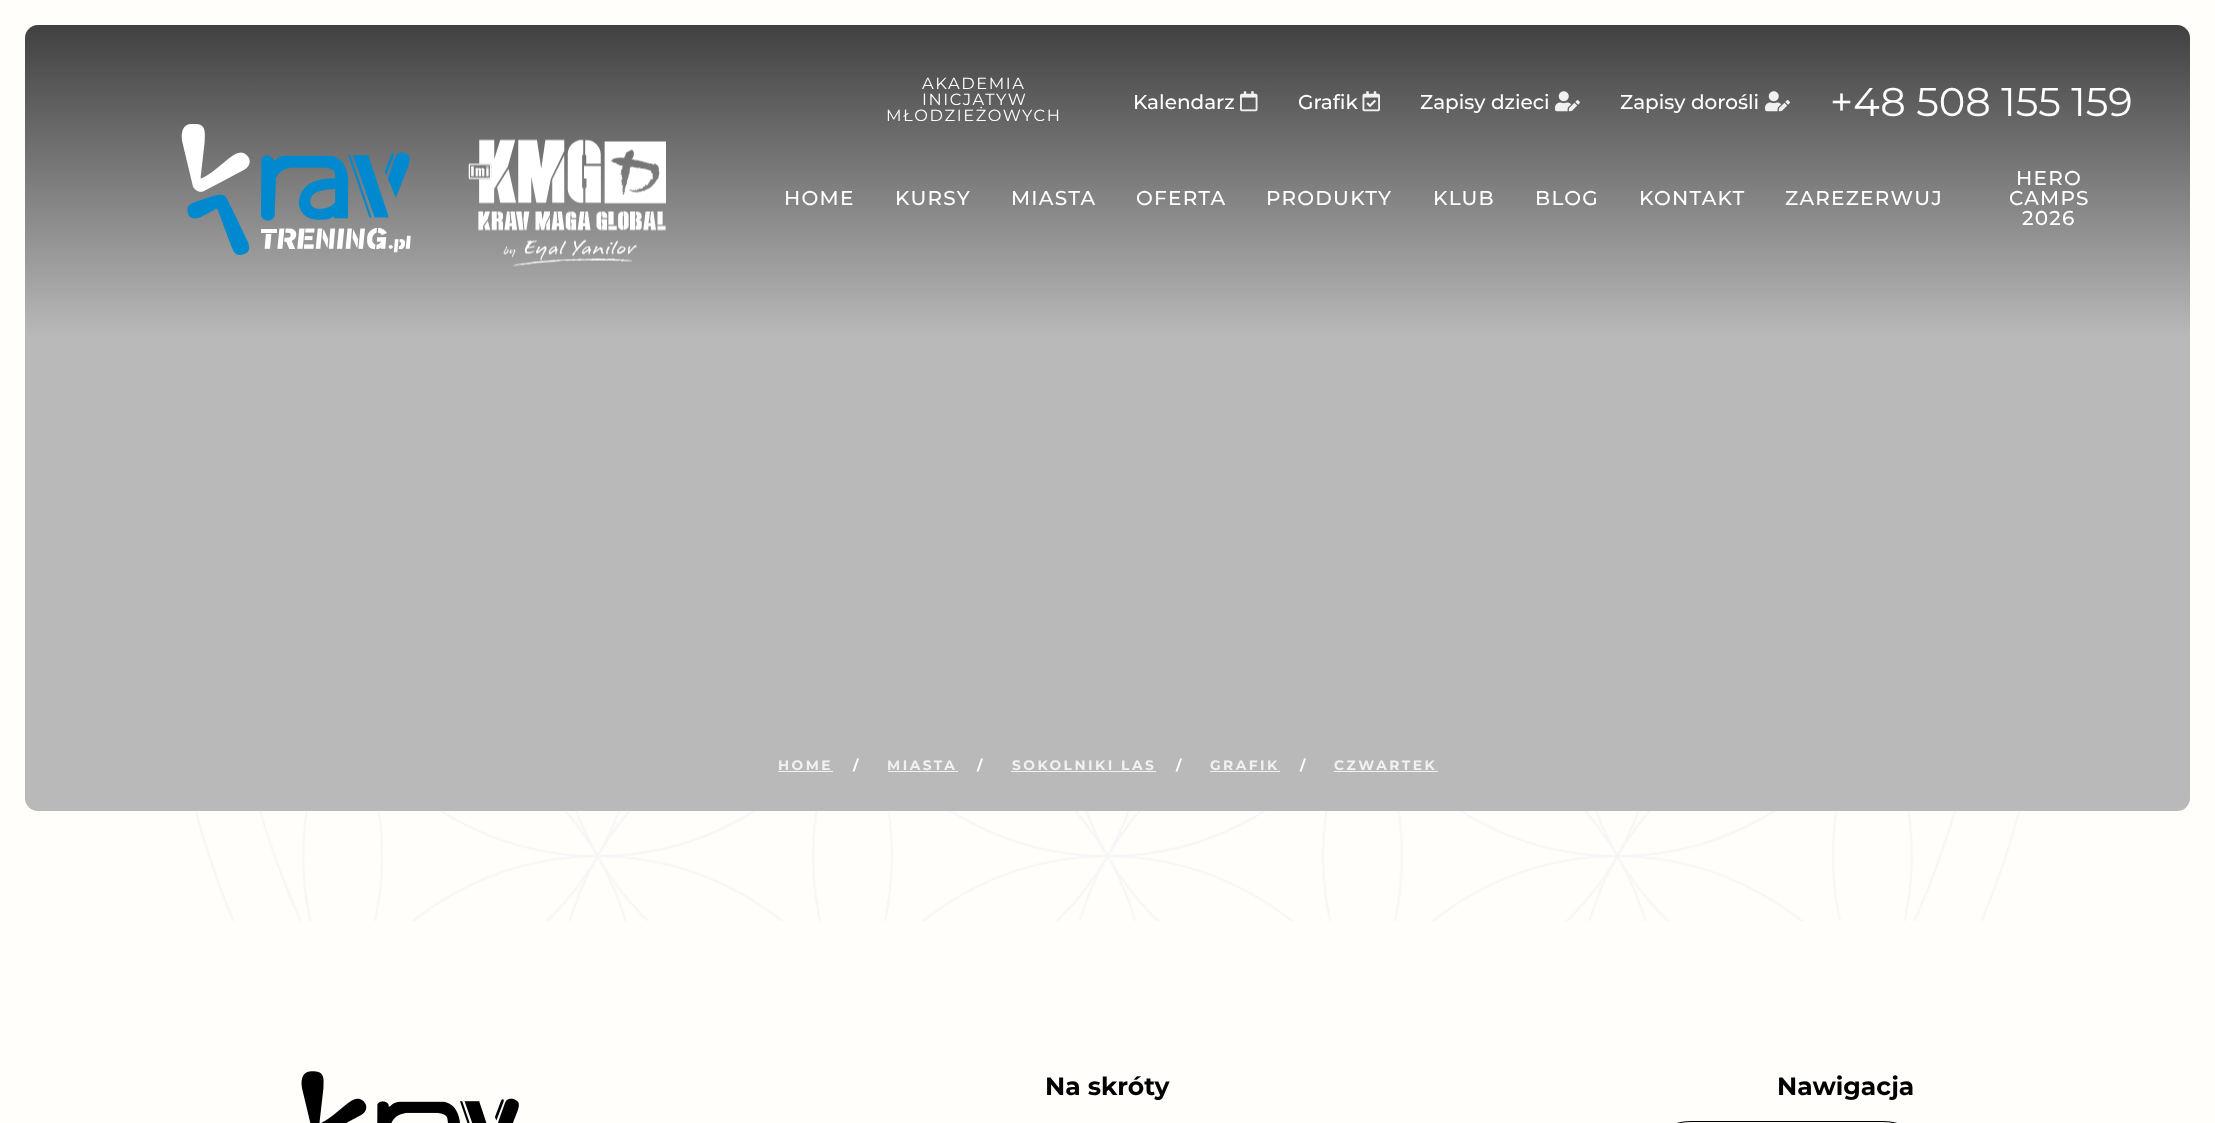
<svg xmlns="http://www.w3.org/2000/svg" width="2215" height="1123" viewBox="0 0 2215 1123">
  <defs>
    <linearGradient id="g1" gradientUnits="userSpaceOnUse" x1="1108" y1="25" x2="1108" y2="338"><stop offset="0" stop-color="rgb(0,0,0)" stop-opacity="0.65"/><stop offset="1" stop-color="rgb(0,0,0)" stop-opacity="0"/></linearGradient>
  </defs>
  <rect width="100%" height="100%" fill="rgb(255,254,251)"/>
  <image x="194" y="811" width="1827" height="110" href="pic1.png"/>
  <rect x="25" y="25" width="2165" height="786" rx="13" fill="rgb(248,248,248)"/>
  <rect x="25" y="25" width="2165" height="786" rx="13" fill="rgba(41,41,41,0.3)"/>
  <path d="M38 25H2177C2184 25 2190 31 2190 38V338H25V38C25 31 31 25 38 25Z" fill="url(#g1)"/>
  <g font-family="Montserrat" font-size="16.25" letter-spacing="1.6" fill="rgb(255,255,255)">
    <text>
      <tspan x="922" y="89">AKADEMIA</tspan>
      <tspan x="922" y="105">INICJATYW</tspan>
    </text>
    <text x="886" y="121">MŁODZIEŻOWYCH</text>
  </g>
  <text x="1133" y="109" font-family="Montserrat" font-size="20" font-weight="500" fill="rgb(255,255,255)">Kalendarz</text>
  <image x="1240" y="91" width="18" height="21" href="pic2.png"/>
  <text x="1298" y="109" font-family="Montserrat" font-size="20" font-weight="500" fill="rgb(255,255,255)">Grafik</text>
  <image x="1362" y="91" width="18" height="21" href="pic3.png"/>
  <text x="1420" y="109" font-family="Montserrat" font-size="20" font-weight="500" fill="rgb(255,255,255)">Zapisy dzieci</text>
  <image x="1555" y="91" width="25" height="21" href="pic4.png"/>
  <text x="1620" y="109" font-family="Montserrat" font-size="20" font-weight="500" fill="rgb(255,255,255)">Zapisy dorośli</text>
  <image x="1765" y="91" width="25" height="21" href="pic4.png"/>
  <text x="1830" y="116" font-family="Montserrat" font-size="40" fill="rgb(255,255,255)">+48 508 155 159</text>
  <image x="181" y="124" width="230" height="131" href="pic5.png"/>
  <image x="468" y="139" width="198" height="128" href="pic6.png"/>
  <g font-family="Montserrat" font-size="20" font-weight="500" letter-spacing="1.25" fill="rgb(255,255,255)">
    <text x="784" y="205">HOME</text>
    <text x="895" y="205">KURSY</text>
    <text x="1011" y="205">MIASTA</text>
    <text x="1136" y="205">OFERTA</text>
    <text x="1266" y="205">PRODUKTY</text>
    <text x="1433" y="205">KLUB</text>
    <text x="1535" y="205">BLOG</text>
    <text x="1639" y="205">KONTAKT</text>
    <text x="1785" y="205">ZAREZERWUJ</text>
    <text x="2016" y="185">HERO</text>
    <text x="2009" y="205">CAMPS</text>
    <text x="2022" y="225">2026</text>
  </g>
  <text x="778" y="770" font-family="Montserrat" font-size="13.75" font-weight="bold" letter-spacing="2.5" fill="rgb(241,241,241)">HOME</text>
  <rect x="778" y="771" width="55" height="1" fill="rgb(241,241,241)"/>
  <text x="853" y="770" font-family="Montserrat" font-size="13.75" font-weight="bold" letter-spacing="2.5" fill="rgb(255,255,255)">/</text>
  <text x="887" y="770" font-family="Montserrat" font-size="13.75" font-weight="bold" letter-spacing="2.5" fill="rgb(241,241,241)">MIASTA</text>
  <rect x="888" y="771" width="70" height="1" fill="rgb(241,241,241)"/>
  <text x="977" y="770" font-family="Montserrat" font-size="13.75" font-weight="bold" letter-spacing="2.5" fill="rgb(255,255,255)">/</text>
  <text x="1012" y="770" font-family="Montserrat" font-size="13.75" font-weight="bold" letter-spacing="2.5" fill="rgb(241,241,241)">SOKOLNIKI LAS</text>
  <rect x="1011" y="771" width="145" height="1" fill="rgb(241,241,241)"/>
  <text x="1176" y="770" font-family="Montserrat" font-size="13.75" font-weight="bold" letter-spacing="2.5" fill="rgb(255,255,255)">/</text>
  <text x="1210" y="770" font-family="Montserrat" font-size="13.75" font-weight="bold" letter-spacing="2.5" fill="rgb(241,241,241)">GRAFIK</text>
  <rect x="1210" y="771" width="70" height="1" fill="rgb(241,241,241)"/>
  <text x="1300" y="770" font-family="Montserrat" font-size="13.75" font-weight="bold" letter-spacing="2.5" fill="rgb(255,255,255)">/</text>
  <text x="1334" y="770" font-family="Montserrat" font-size="13.75" font-weight="bold" letter-spacing="2.5" fill="rgb(241,241,241)">CZWARTEK</text>
  <rect x="1334" y="771" width="104" height="1" fill="rgb(241,241,241)"/>
  <image x="301" y="1071" width="218" height="52" href="pic7.png"/>
  <g font-family="Montserrat" font-size="25" font-weight="bold" fill="rgb(0,0,0)">
    <text x="1045" y="1095">Na skróty</text>
    <text x="1777" y="1095">Nawigacja</text>
  </g>
  <rect x="1660.5" y="1121.5" width="253" height="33" rx="30.5" fill="none" stroke="rgb(0,0,0)"/>
</svg>
